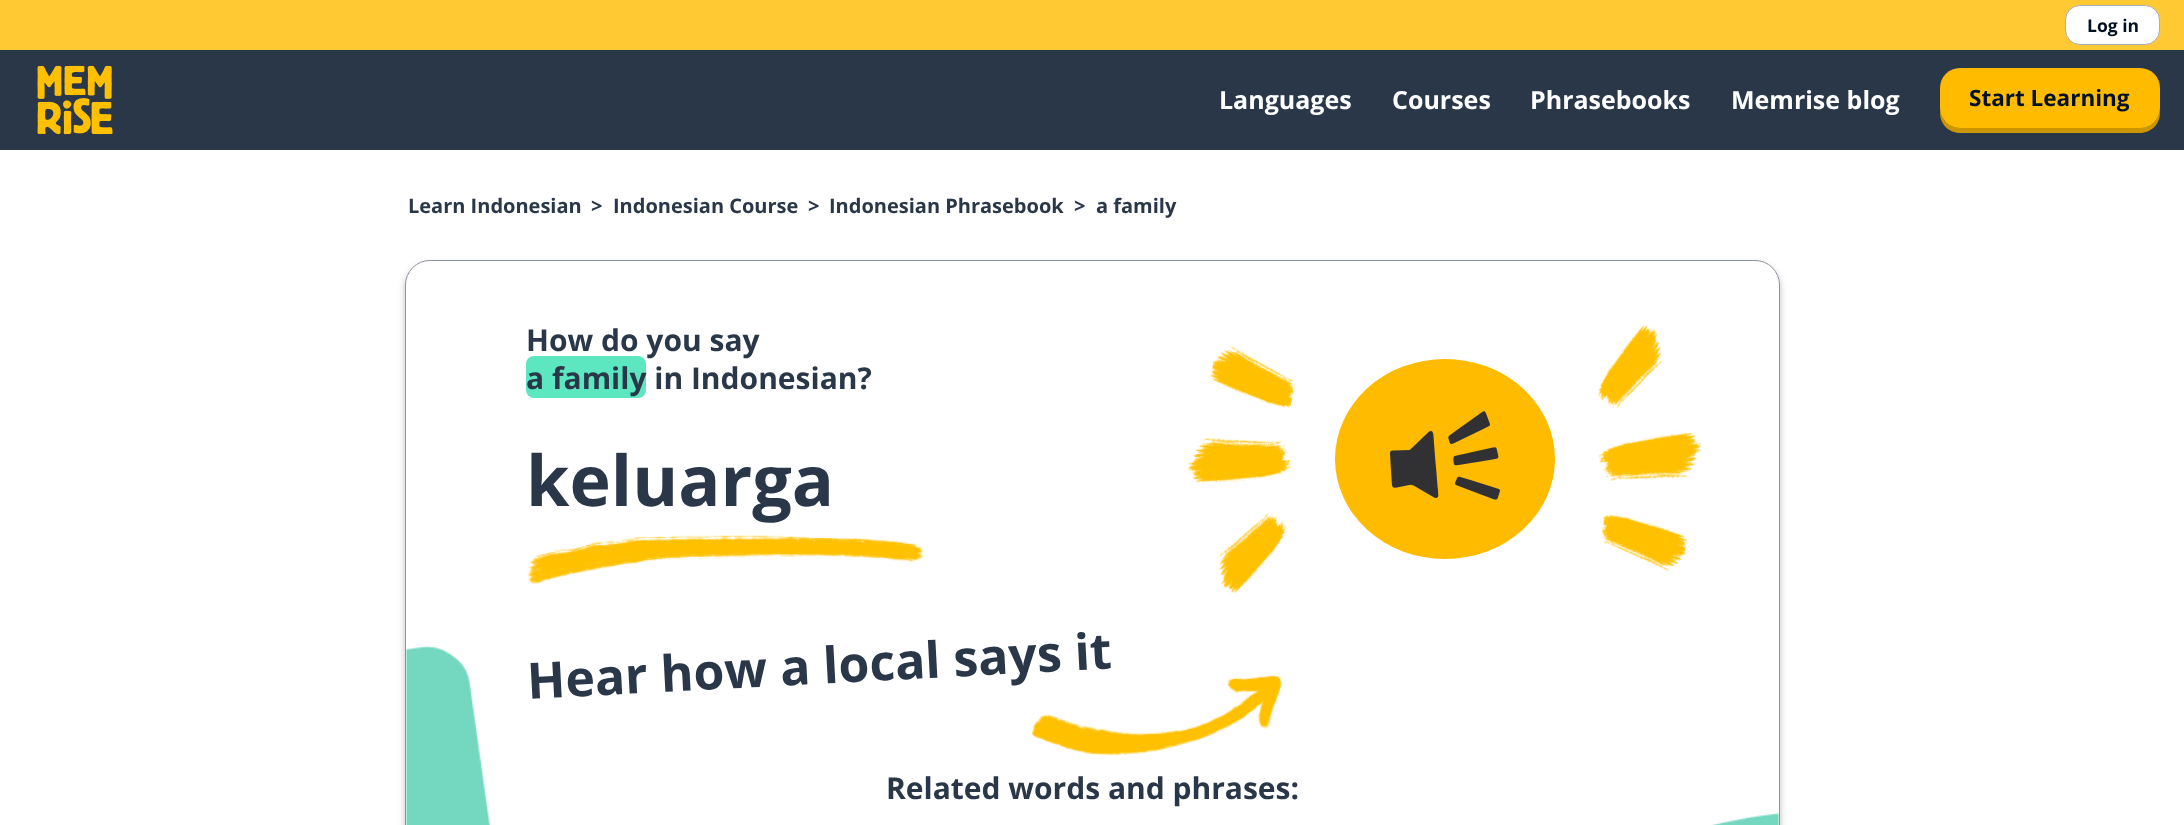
<svg xmlns="http://www.w3.org/2000/svg" width="2184" height="825" viewBox="0 0 2184 825">
  <rect width="100%" height="100%" fill="rgb(255,255,255)"/>
  <rect x="0" y="0" width="2184" height="50" fill="rgb(255,201,51)"/>
  <rect x="2065.5" y="5.5" width="94" height="39" rx="14.5" fill="rgb(255,255,255)" stroke="rgb(168,174,186)"/>
  <text x="2087" y="32" font-family="Open Sans" font-size="17.5" font-weight="bold" fill="rgb(0,17,34)">Log in</text>
  <rect x="0" y="50" width="2184" height="100" fill="rgb(41,55,73)"/>
  <image x="37" y="65" width="76" height="70" href="pic1.png"/>
  <g font-family="Open Sans" font-size="25" font-weight="bold" fill="rgb(255,255,255)">
    <text x="1219" y="109">Languages</text>
    <text x="1392" y="109">Courses</text>
    <text x="1530" y="109">Phrasebooks</text>
    <text x="1731" y="109">Memrise blog</text>
  </g>
  <path d="M1940 108V113C1940 124 1949 133 1960 133H2140C2151 133 2160 124 2160 113V108C2160 119 2151 128 2140 128H1960C1949 128 1940 119 1940 108Z" fill="rgb(204,150,0)"/>
  <rect x="1940" y="68" width="220" height="60" rx="20" fill="rgb(255,187,0)"/>
  <text x="1969" y="106" font-family="Open Sans" font-size="22.5" font-weight="bold" fill="rgb(0,17,34)">Start Learning</text>
  <g font-family="Open Sans" font-size="20" font-weight="bold" fill="rgb(41,55,73)">
    <text x="408" y="213">Learn Indonesian</text>
    <text x="591" y="213">&gt;</text>
    <text x="613" y="213">Indonesian Course</text>
    <text x="808" y="213">&gt;</text>
    <text x="829" y="213">Indonesian Phrasebook</text>
    <text x="1074" y="213">&gt;</text>
    <text x="1096" y="213">a family</text>
  </g>
  <rect x="405" y="263" width="1375" height="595" rx="25" fill="rgba(0,0,0,0.12)" filter="blur(2.5px)"/>
  <rect x="405" y="264" width="1375" height="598" rx="25" fill="rgba(0,0,0,0.15)" filter="blur(4px)"/>
  <rect x="405.5" y="260.5" width="1374" height="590" rx="24.5" fill="rgb(255,255,255)" stroke="rgb(142,148,160)"/>
  <image x="406" y="646" width="1373" height="179" href="pic2.png"/>
  <text x="526" y="351" font-family="Open Sans" font-size="30" font-weight="bold" fill="rgb(41,55,73)">How do you say</text>
  <rect x="526" y="356" width="120" height="42" rx="8" fill="rgb(93,231,192)"/>
  <text x="526" y="389" font-family="Open Sans" font-size="30" font-weight="bold" fill="rgb(41,55,73)">a family in Indonesian?</text>
  <text x="526" y="506" font-family="Open Sans" font-size="70" font-weight="bold" fill="rgb(41,55,73)">keluarga</text>
  <image x="527" y="535" width="398" height="49" href="pic3.png"/>
  <image x="1187" y="346" width="108" height="250" href="pic4.png"/>
  <ellipse cx="1445" cy="459" rx="110" ry="100" fill="rgb(255,187,0)"/>
  <image x="1390" y="411" width="110" height="89" href="pic5.png"/>
  <image x="1597" y="322" width="105" height="249" href="pic6.png"/>
  <text x="528" y="699" transform="rotate(-3 528 699)" font-family="Open Sans" font-size="50" font-weight="bold" fill="rgb(41,55,73)">Hear how a local says it</text>
  <image x="1031" y="675" width="252" height="81" href="pic7.png"/>
  <text x="886" y="799" font-family="Open Sans" font-size="30" font-weight="bold" fill="rgb(41,55,73)">Related words and phrases:</text>
</svg>
